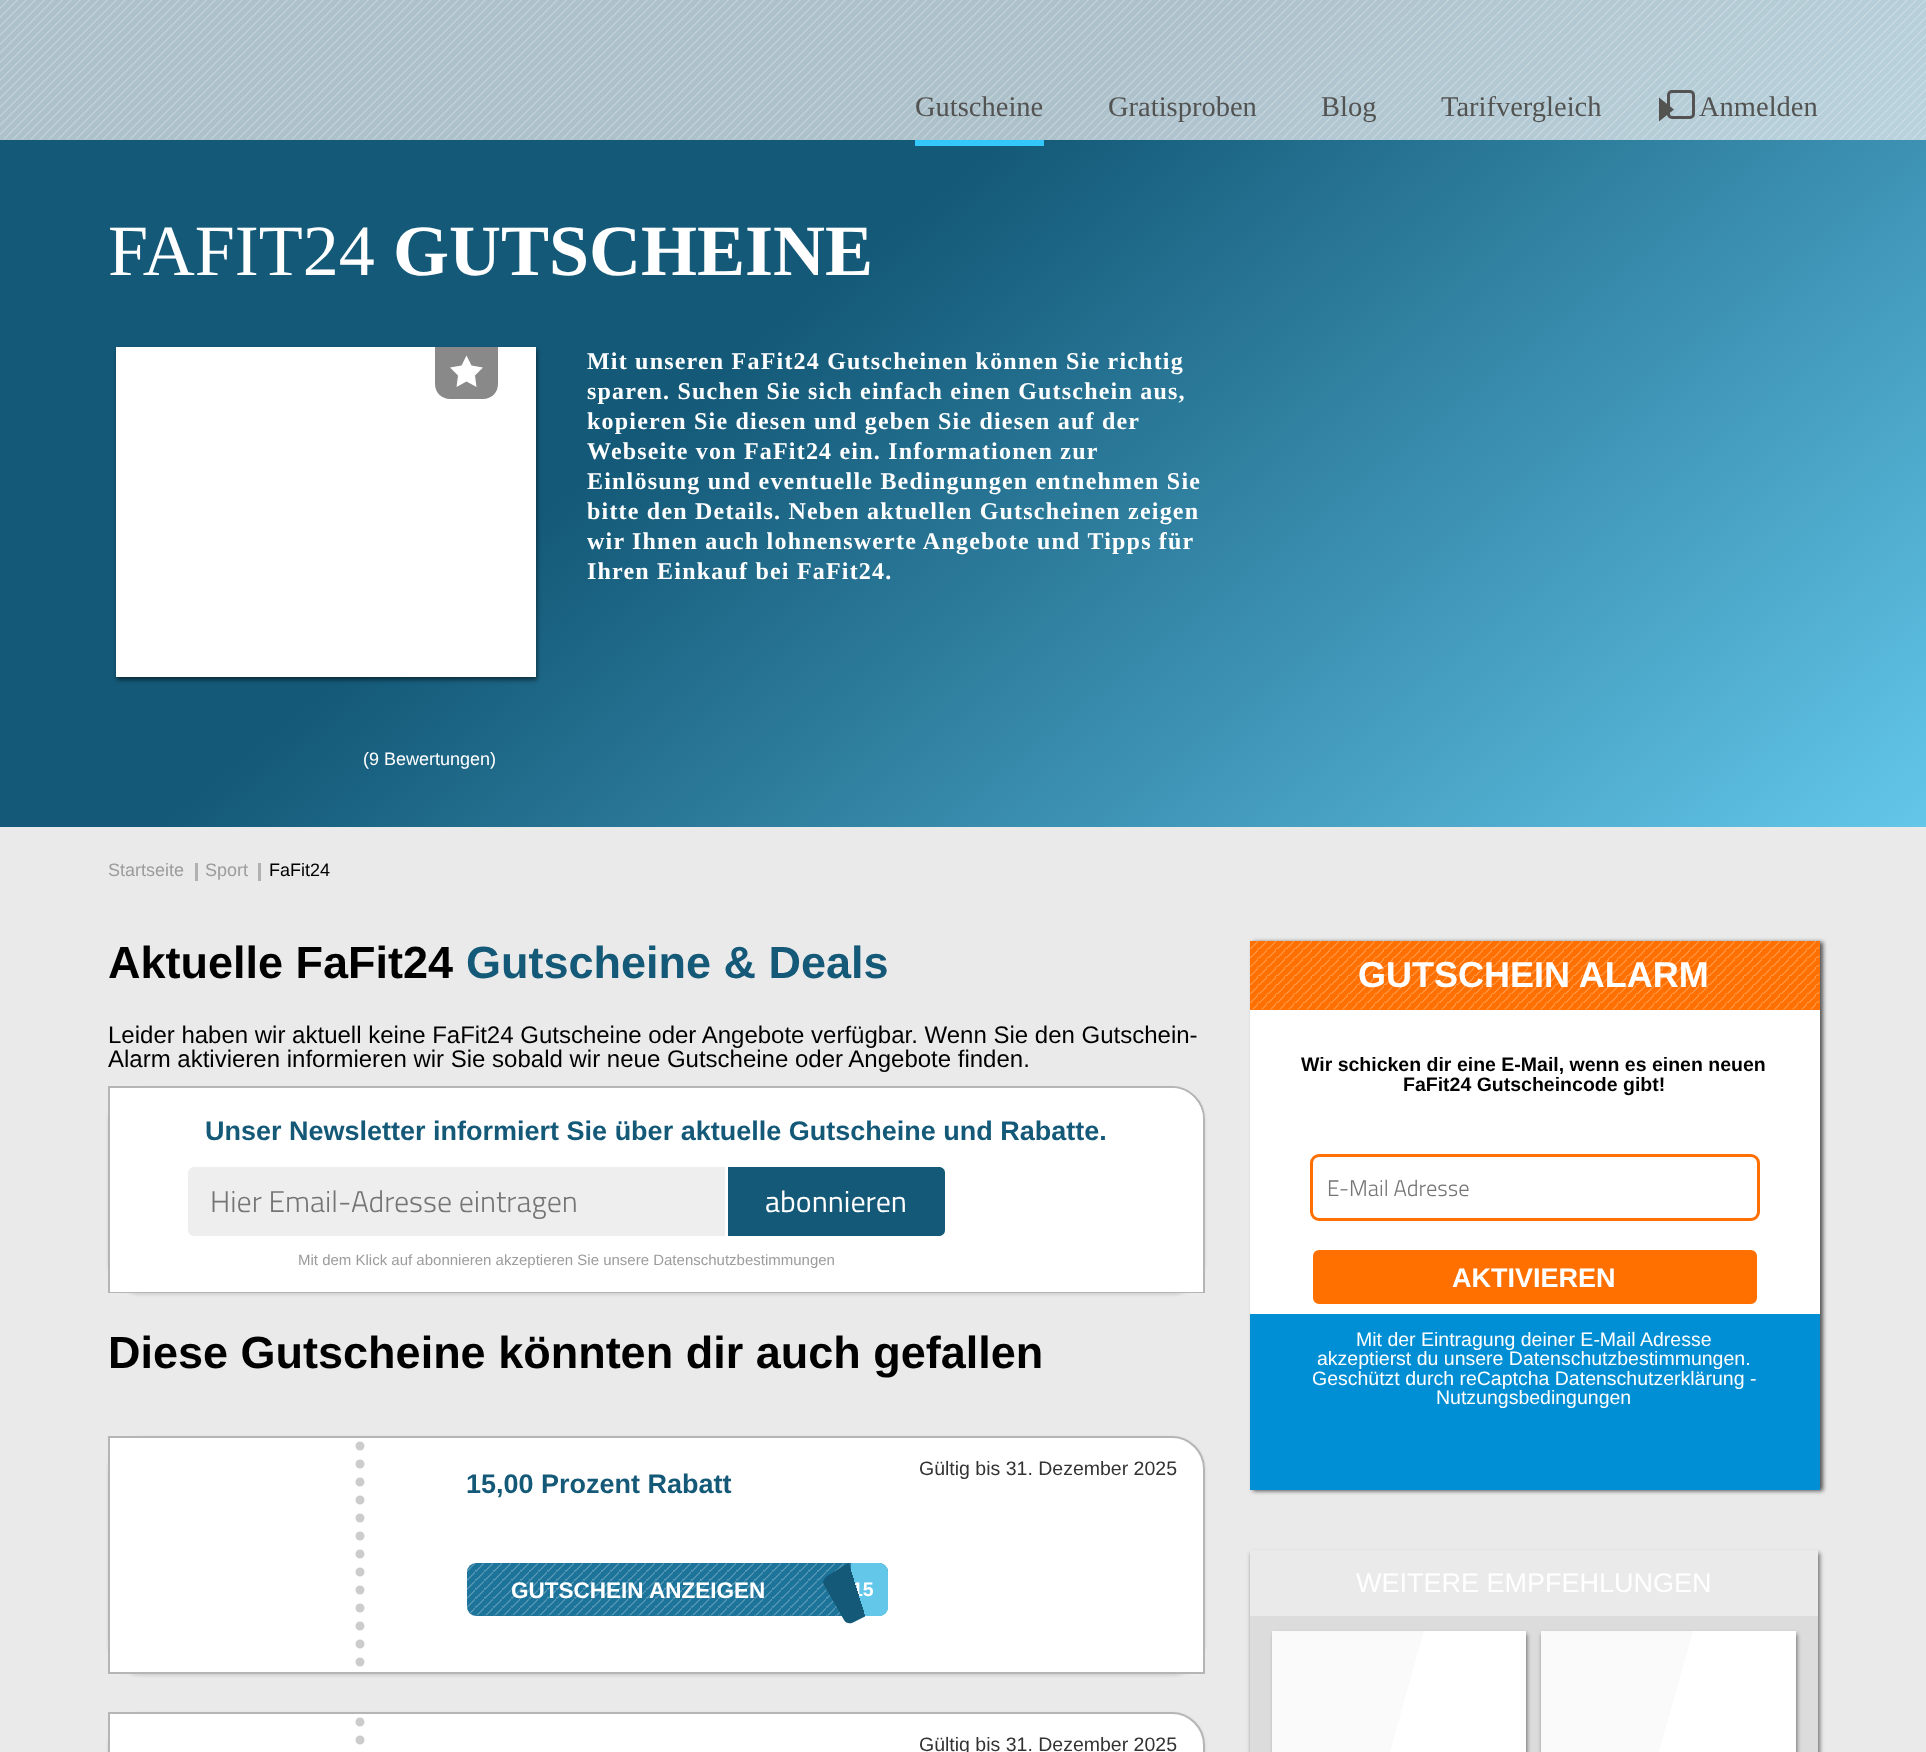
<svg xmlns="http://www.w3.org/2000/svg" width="1926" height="1752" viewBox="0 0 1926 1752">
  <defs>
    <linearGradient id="g1" gradientUnits="userSpaceOnUse" x1="379" y1="-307" x2="1547" y2="1134"><stop offset="0.4" stop-color="rgb(20,89,120)"/><stop offset="1" stop-color="rgb(99,199,234)"/></linearGradient>
    <linearGradient id="g2" gradientUnits="userSpaceOnUse" x1="379" y1="-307" x2="1547" y2="1134"><stop offset="0.4" stop-color="rgb(173,193,203)"/><stop offset="1" stop-color="rgb(196,226,237)"/></linearGradient>
    <clipPath id="clip1"><path d="M110 1088H1171C1188.5 1088 1203 1102.5 1203 1120V1292H110Z"/></clipPath>
    <linearGradient id="g3" gradientUnits="userSpaceOnUse" x1="818" y1="1604" x2="879" y2="1585"><stop offset="0" stop-color="rgb(20,89,120)"/><stop offset="0.65" stop-color="rgb(20,89,120)"/><stop offset="0.65" stop-color="rgb(20,89,120)" stop-opacity="0"/><stop offset="1" stop-color="rgb(255,255,255)" stop-opacity="0"/></linearGradient>
    <clipPath id="clip2"><path d="M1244 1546H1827V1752H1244ZM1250 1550H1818V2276H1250Z" clip-rule="evenodd"/></clipPath>
  </defs>
  <rect width="100%" height="100%" fill="rgb(255,255,255)"/>
  <rect x="0" y="140" width="1926" height="687" fill="url(#g1)"/>
  <rect x="0" y="0" width="1926" height="140" fill="url(#g2)"/>
  <image x="0" y="0" width="1926" height="140" href="pic1.png"/>
  <g font-family="Liberation Serif" font-size="28.5" fill="rgb(83,83,82)">
    <text x="915" y="116">Gutscheine</text>
    <text x="1108" y="116">Gratisproben</text>
    <text x="1321" y="116">Blog</text>
    <text x="1441" y="116">Tarifvergleich</text>
  </g>
  <rect x="1668.5" y="91.5" width="25" height="26" rx="3.5" fill="none" stroke="rgb(83,83,82)" stroke-width="3"/>
  <path d="M1659 121.5V97.5L1674 109.5Z" fill="rgb(83,83,82)"/>
  <text x="1699" y="116" font-family="Liberation Serif" font-size="28.5" fill="rgb(83,83,82)">Anmelden</text>
  <rect x="915" y="140" width="129" height="6" fill="rgb(51,199,251)"/>
  <text x="108" y="275" font-family="Liberation Serif" font-size="72" fill="rgb(255,255,255)">FAFIT24</text>
  <text x="393" y="275" font-family="Liberation Serif" font-size="72" font-weight="bold" fill="rgb(255,255,255)">GUTSCHEINE</text>
  <g font-family="Liberation Serif" font-size="24" font-weight="bold" letter-spacing="1.2" fill="rgb(255,255,255)">
    <text>
      <tspan x="587" y="369">Mit unseren FaFit24 Gutscheinen können Sie richtig</tspan>
      <tspan x="587" y="399">sparen. Suchen Sie sich einfach einen Gutschein aus,</tspan>
      <tspan x="587" y="429">kopieren Sie diesen und geben Sie diesen auf der</tspan>
      <tspan x="587" y="459">Webseite von FaFit24 ein. Informationen zur</tspan>
      <tspan x="587" y="489">Einlösung und eventuelle Bedingungen entnehmen Sie</tspan>
      <tspan x="587" y="519">bitte den Details. Neben aktuellen Gutscheinen zeigen</tspan>
      <tspan x="587" y="549">wir Ihnen auch lohnenswerte Angebote und Tipps für</tspan>
      <tspan x="587" y="579">Ihren Einkauf bei FaFit24.</tspan>
    </text>
  </g>
  <rect x="117" y="350" width="420" height="330" fill="rgba(0,0,0,0.5)" filter="blur(2px)"/>
  <rect x="116" y="347" width="420" height="330" fill="rgb(255,255,255)"/>
  <path d="M435 347H498V384C498 392.5 491.5 399 483 399H450C441.5 399 435 392.5 435 384Z" fill="rgb(137,137,137)"/>
  <path d="M483 367.5L471.5 365.5L466.5 355.5L461.5 365.5L450 367.5L458 375.5L456.5 387L466.5 381.5L476.5 387L475 375.5Z" fill="rgb(255,255,255)"/>
  <text x="363" y="765" font-family="Liberation Sans" font-size="18" fill="rgb(255,255,255)">(9 Bewertungen)</text>
  <rect x="0" y="827" width="1926" height="925" fill="rgb(234,234,234)"/>
  <text x="108" y="876" font-family="Liberation Sans" font-size="18" fill="rgb(156,156,156)">Startseite</text>
  <rect x="195" y="863" width="3" height="18" fill="rgb(177,177,177)"/>
  <text x="205" y="876" font-family="Liberation Sans" font-size="18" fill="rgb(156,156,156)">Sport</text>
  <rect x="258" y="863" width="3" height="18" fill="rgb(177,177,177)"/>
  <text x="269" y="876" font-family="Liberation Sans" font-size="18" fill="rgb(0,0,0)">FaFit24</text>
  <text x="108" y="978" font-family="Liberation Sans" font-size="45" font-weight="bold" fill="rgb(0,0,0)">Aktuelle FaFit24</text>
  <text x="466" y="978" font-family="Liberation Sans" font-size="45" font-weight="bold" fill="rgb(20,89,120)">Gutscheine &amp; Deals</text>
  <g font-family="Liberation Sans" font-size="24" fill="rgb(0,0,0)">
    <text>
      <tspan x="108" y="1043">Leider haben wir aktuell keine FaFit24 Gutscheine oder Angebote verfügbar. Wenn Sie den Gutschein-</tspan>
      <tspan x="108" y="1067">Alarm aktivieren informieren wir Sie sobald wir neue Gutscheine oder Angebote finden.</tspan>
    </text>
  </g>
  <rect x="108" y="1088" width="1097" height="207" rx="33" fill="rgba(0,0,0,0.1)" filter="blur(1.5px)"/>
  <path d="M109 1087H1172C1189.5 1087 1204 1101.5 1204 1119V1292H109Z" fill="rgb(255,255,255)" stroke="rgb(181,181,181)" stroke-width="2"/>
  <g clip-path="url(#clip1)">
    <rect x="110" y="1088" width="1075" height="3" fill="rgb(255,255,255)"/>
    <rect x="110" y="1091" width="1093" height="201" fill="rgb(255,255,255)"/>
  </g>
  <text x="205" y="1140" font-family="Liberation Sans" font-size="27" font-weight="bold" fill="rgb(20,89,120)">Unser Newsletter informiert Sie über aktuelle Gutscheine und Rabatte.</text>
  <rect x="188" y="1167" width="757" height="69" rx="6" fill="rgb(238,238,238)"/>
  <text x="210" y="1212" font-family="Titillium Web" font-size="30" font-weight="300" fill="rgb(117,117,117)">Hier Email-Adresse eintragen</text>
  <path d="M725 1167H939C942.5 1167 945 1169.5 945 1173V1230C945 1233.5 942.5 1236 939 1236H725Z" fill="rgb(20,89,120)"/>
  <rect x="725" y="1167" width="3" height="69" fill="rgb(255,255,255)"/>
  <text x="765" y="1212" font-family="Titillium Web" font-size="30" fill="rgb(255,255,255)">abonnieren</text>
  <text x="298" y="1265" font-family="Liberation Sans" font-size="15" fill="rgb(156,156,156)">Mit dem Klick auf abonnieren akzeptieren Sie unsere Datenschutzbestimmungen</text>
  <text x="108" y="1368" font-family="Liberation Sans" font-size="45" font-weight="bold" fill="rgb(0,0,0)">Diese Gutscheine könnten dir auch gefallen</text>
  <rect x="108" y="1437" width="1097" height="239" rx="33" fill="rgba(0,0,0,0.1)" filter="blur(1.5px)"/>
  <path d="M109 1437H1172C1189.5 1437 1204 1451.5 1204 1469V1673H109Z" fill="rgb(255,255,255)" stroke="rgb(181,181,181)" stroke-width="2"/>
  <path d="M360 1446V1663.5" fill="none" stroke="rgb(204,204,204)" stroke-width="9" stroke-linecap="round" stroke-dasharray="0 18"/>
  <text x="919" y="1475" font-family="Liberation Sans" font-size="19.5" fill="rgb(51,51,51)">Gültig bis 31. Dezember 2025</text>
  <text x="466" y="1493" font-family="Liberation Sans" font-size="27" font-weight="bold" fill="rgb(20,89,120)">15,00 Prozent Rabatt</text>
  <rect x="467" y="1563" width="421" height="53" rx="9" fill="rgb(29,116,155)"/>
  <image x="467" y="1563" width="421" height="53" href="pic2.png"/>
  <path d="M821 1563H879C884 1563 888 1567 888 1572V1607C888 1612 884 1616 879 1616H821Z" fill="rgb(99,199,234)"/>
  <rect x="701" y="1563" width="150" height="53" fill="rgb(29,116,155)"/>
  <image x="700" y="1563" width="151" height="53" href="pic3.png"/>
  <text x="511" y="1598" font-family="Liberation Sans" font-size="22.5" font-weight="bold" fill="rgb(255,255,255)">GUTSCHEIN ANZEIGEN</text>
  <text x="852" y="1596" font-family="Liberation Sans" font-size="19.5" font-weight="bold" fill="rgb(255,255,255)">15</text>
  <path d="M866 1616L854 1622C851 1624 846 1624 844 1620L824 1585C822 1582 824 1578 827 1576L857 1558L884 1605Z" fill="url(#g3)"/>
  <rect x="108" y="1713" width="1097" height="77" rx="33" fill="rgba(0,0,0,0.1)" filter="blur(1.5px)"/>
  <path d="M109 1713H1172C1189.5 1713 1204 1727.5 1204 1745V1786H109Z" fill="rgb(255,255,255)" stroke="rgb(181,181,181)" stroke-width="2"/>
  <path d="M360 1722V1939.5" fill="none" stroke="rgb(204,204,204)" stroke-width="9" stroke-linecap="round" stroke-dasharray="0 18"/>
  <text x="919" y="1751" font-family="Liberation Sans" font-size="19.5" fill="rgb(51,51,51)">Gültig bis 31. Dezember 2025</text>
  <rect x="1253" y="942" width="570" height="549" fill="rgba(0,0,0,0.65)" filter="blur(2px)"/>
  <rect x="1250" y="1010" width="570" height="304" fill="rgb(255,255,255)"/>
  <rect x="1250" y="941" width="570" height="69" fill="rgb(255,112,0)"/>
  <image x="1250" y="940" width="570" height="70" href="pic4.png"/>
  <text x="1358" y="987" font-family="Liberation Sans" font-size="36" font-weight="bold" fill="rgb(255,255,255)">GUTSCHEIN ALARM</text>
  <g font-family="Liberation Sans" font-size="19.5" font-weight="bold" fill="rgb(0,0,0)">
    <text x="1301" y="1071">Wir schicken dir eine E-Mail, wenn es einen neuen</text>
    <text x="1403" y="1091">FaFit24 Gutscheincode gibt!</text>
  </g>
  <rect x="1250" y="1314" width="570" height="176" fill="rgb(0,143,213)"/>
  <rect x="1311.5" y="1155.5" width="447" height="64" rx="7.5" fill="none" stroke="rgb(255,112,0)" stroke-width="3"/>
  <text x="1327" y="1196" font-family="Titillium Web" font-size="22.5" font-weight="300" fill="rgb(117,117,117)">E-Mail Adresse</text>
  <rect x="1311.5" y="1248.5" width="447" height="57" rx="7.5" fill="rgb(255,112,0)" stroke="rgb(255,255,255)" stroke-width="3"/>
  <text x="1452" y="1287" font-family="Liberation Sans" font-size="27" font-weight="bold" fill="rgb(255,255,255)">AKTIVIEREN</text>
  <g font-family="Liberation Sans" font-size="19.5" fill="rgb(255,255,255)">
    <text x="1356" y="1346">Mit der Eintragung deiner E-Mail Adresse</text>
    <text x="1317" y="1365">akzeptierst du unsere Datenschutzbestimmungen.</text>
    <text x="1312" y="1385">Geschützt durch reCaptcha Datenschutzerklärung -</text>
    <text x="1436" y="1404">Nutzungsbedingungen</text>
  </g>
  <g clip-path="url(#clip2)">
    <rect x="1251" y="1553" width="569" height="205" fill="rgba(0,0,0,0.5)" filter="blur(2px)"/>
  </g>
  <text x="1356" y="1592" font-family="Liberation Sans" font-size="27" fill="rgb(255,255,255)">WEITERE EMPFEHLUNGEN</text>
  <rect x="1250" y="1616" width="568" height="136" fill="rgb(220,220,220)"/>
  <rect x="1274" y="1634" width="253" height="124" fill="rgba(0,0,0,0.5)" filter="blur(2px)"/>
  <rect x="1389" y="1631" width="137" height="121" fill="rgb(255,255,255)"/>
  <path d="M1272 1631H1424L1386 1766H1272Z" fill="rgb(250,250,250)"/>
  <rect x="1542" y="1634" width="255" height="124" fill="rgba(0,0,0,0.5)" filter="blur(2px)"/>
  <rect x="1658" y="1631" width="138" height="121" fill="rgb(255,255,255)"/>
  <path d="M1541 1631H1693L1655 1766H1541Z" fill="rgb(250,250,250)"/>
</svg>
